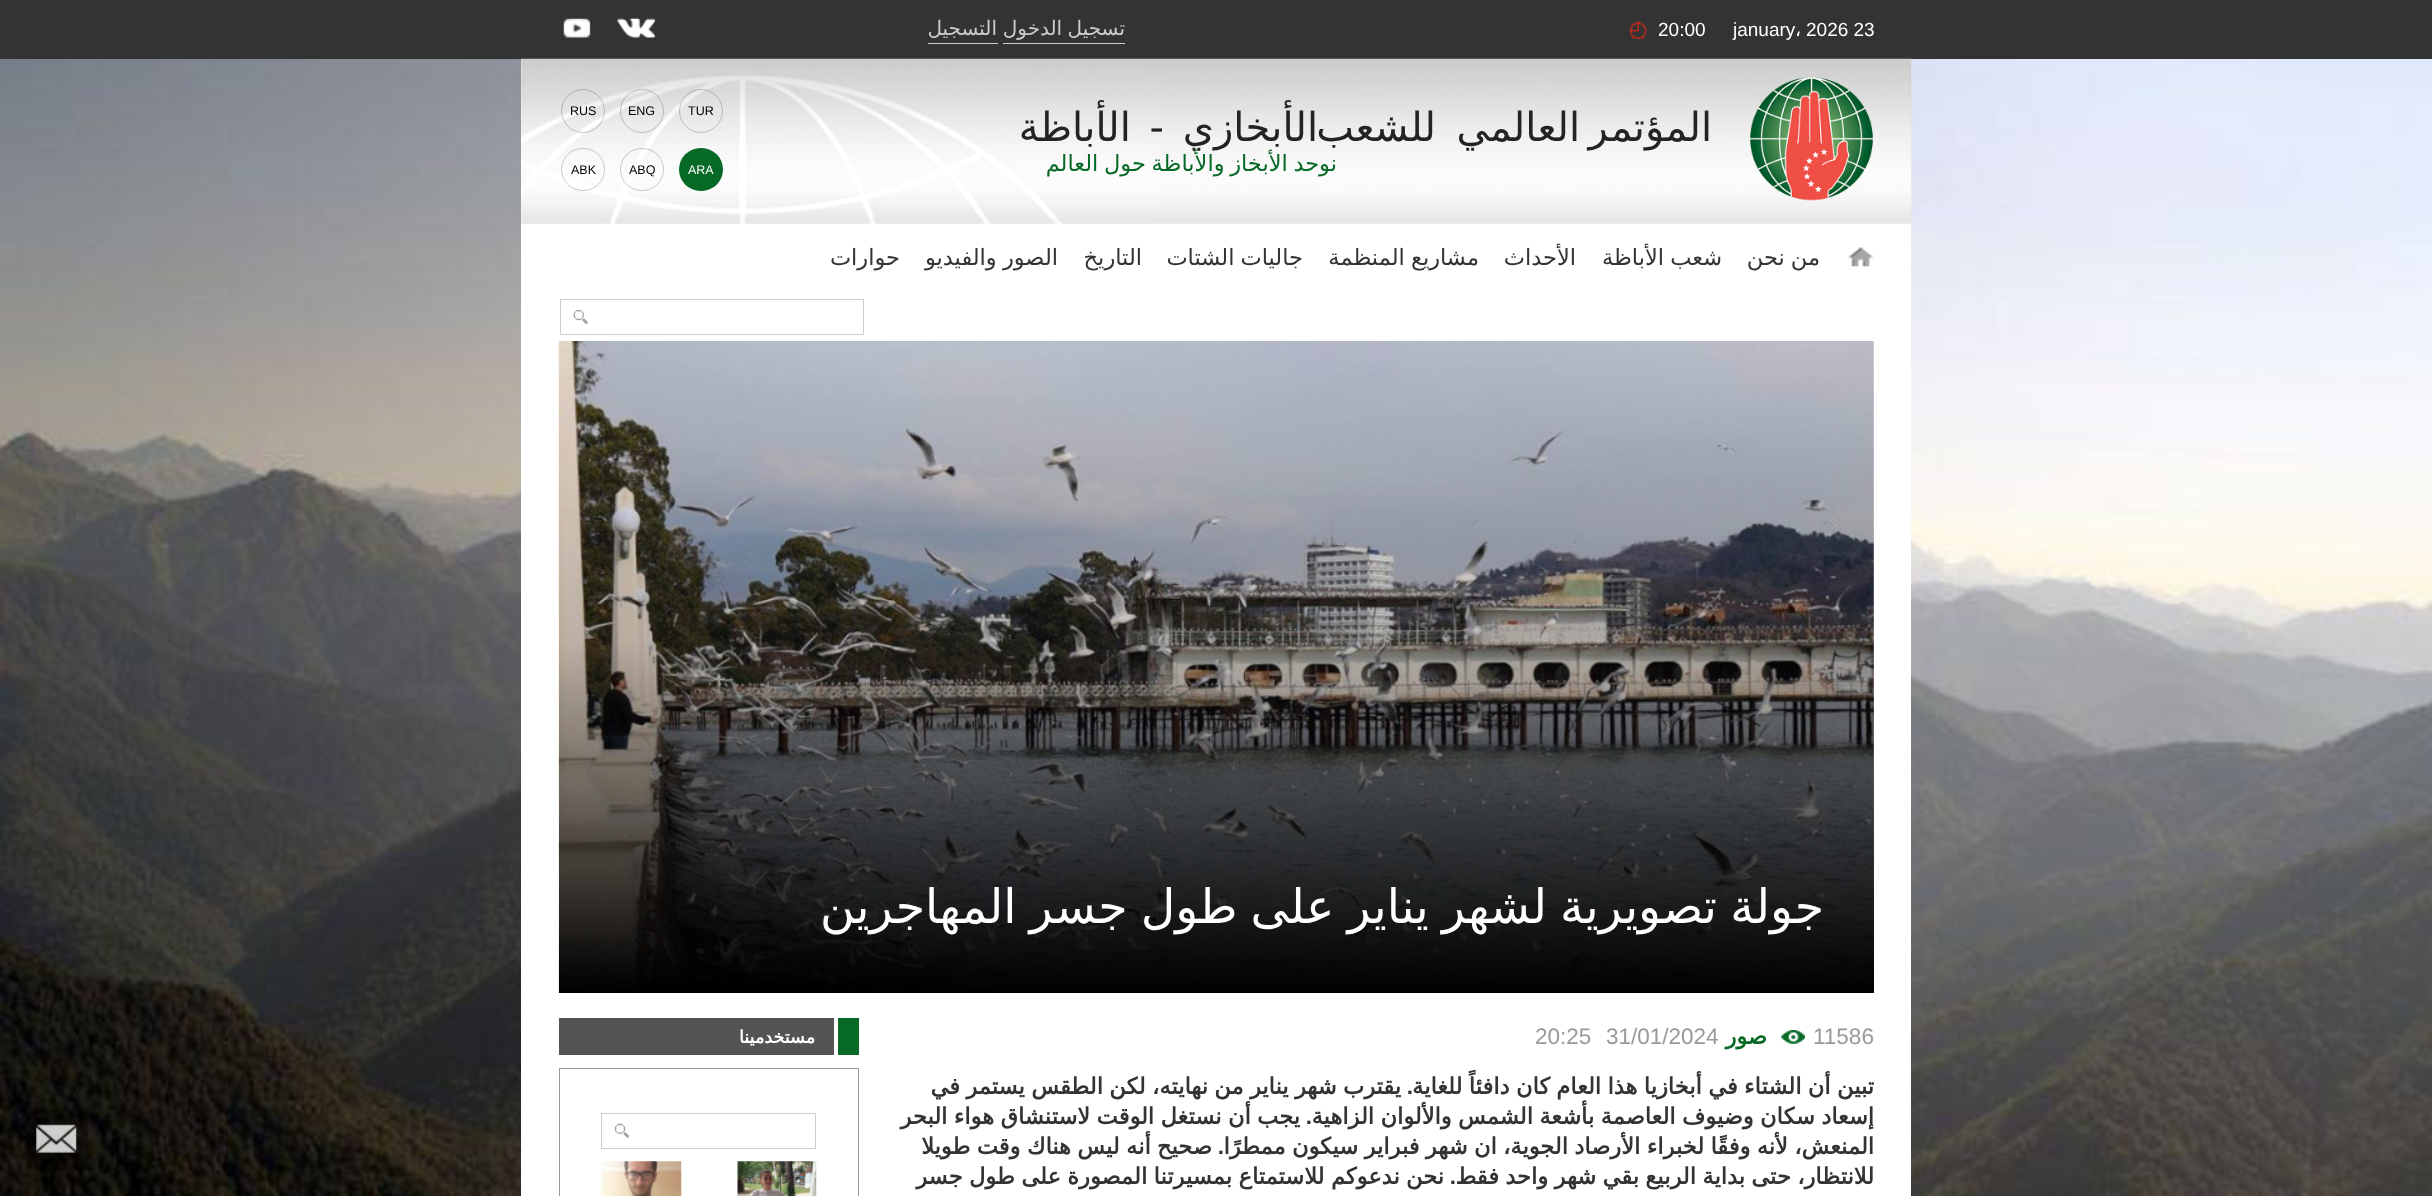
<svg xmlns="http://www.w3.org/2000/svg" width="2432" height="1196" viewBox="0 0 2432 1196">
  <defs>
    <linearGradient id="g1" gradientUnits="userSpaceOnUse" x1="1216" y1="292" x2="1216" y2="993"><stop offset="0" stop-color="rgb(0,0,0)" stop-opacity="0"/><stop offset="0.5" stop-color="rgb(0,0,0)" stop-opacity="0.2"/><stop offset="1" stop-color="rgb(0,0,0)"/></linearGradient>
  </defs>
  <rect width="100%" height="100%" fill="rgb(255,255,255)"/>
  <image x="0" y="59" width="2432" height="1137" href="pic1.png"/>
  <rect x="0" y="0" width="2432" height="59" fill="rgb(51,51,51)"/>
  <text x="1806" y="36" font-family="Liberation Sans" font-size="19" fill="rgb(255,255,255)">2026 23</text>
  <text x="1795" y="36" font-family="DejaVu Sans" font-size="19" fill="rgb(255,255,255)">،</text>
  <text x="1733" y="36" font-family="Liberation Sans" font-size="19" fill="rgb(255,255,255)">january</text>
  <image x="1630" y="21" width="17" height="18" href="pic2.png"/>
  <text x="1658" y="36" font-family="Liberation Sans" font-size="19" fill="rgb(255,255,255)">20:00</text>
  <rect x="1003" y="43" width="122" height="1" fill="rgb(204,204,204)"/>
  <text x="1125" y="35" word-spacing="-1" font-family="DejaVu Sans" font-size="20" direction="rtl" fill="rgb(204,204,204)">تسجيل الدخول</text>
  <rect x="928" y="43" width="70" height="1" fill="rgb(204,204,204)"/>
  <text x="997" y="35" font-family="DejaVu Sans" font-size="20" direction="rtl" fill="rgb(204,204,204)">التسجيل</text>
  <image x="617" y="18" width="38" height="20" href="pic3.png"/>
  <image x="563" y="18" width="28" height="20" href="pic4.png"/>
  <rect x="521" y="59" width="1390" height="1137" fill="rgb(255,255,255)"/>
  <image x="521" y="58" width="1391" height="166" href="pic5.png"/>
  <image x="1750" y="77" width="123" height="124" href="pic6.png"/>
  <g font-family="DejaVu Sans" font-size="40" letter-spacing="-1.5" direction="rtl" fill="rgb(35,35,35)">
    <text x="1712" y="141">المؤتمر</text>
    <text x="1580" y="141" word-spacing="8">العالمي للشعب</text>
    <text x="1318" y="141" word-spacing="6">الأبخازي - الأباظة</text>
  </g>
  <text x="1337" y="171" word-spacing="-1.5" font-family="DejaVu Sans" font-size="22.5" direction="rtl" fill="rgb(6,105,38)">نوحد الأبخاز والأباظة حول العالم</text>
  <circle cx="701" cy="111" r="21.5" fill="none" stroke="rgba(0,0,0,0.2)"/>
  <text x="688" y="115" font-family="Liberation Sans" font-size="12.5" fill="rgb(0,0,0)">TUR</text>
  <circle cx="642" cy="111" r="21.5" fill="none" stroke="rgba(0,0,0,0.2)"/>
  <text x="628" y="115" font-family="Liberation Sans" font-size="12.5" fill="rgb(0,0,0)">ENG</text>
  <circle cx="583" cy="111" r="21.5" fill="none" stroke="rgba(0,0,0,0.2)"/>
  <text x="570" y="115" font-family="Liberation Sans" font-size="12.5" fill="rgb(0,0,0)">RUS</text>
  <rect x="679" y="148" width="44" height="43" rx="21.5" fill="rgb(6,105,38)"/>
  <text x="688" y="174" font-family="Liberation Sans" font-size="12.5" fill="rgb(255,255,255)">ARA</text>
  <rect x="620.5" y="148.5" width="43" height="42" rx="21" fill="none" stroke="rgba(0,0,0,0.2)"/>
  <text x="629" y="174" font-family="Liberation Sans" font-size="12.5" fill="rgb(0,0,0)">ABQ</text>
  <rect x="561.5" y="148.5" width="43" height="42" rx="21" fill="none" stroke="rgba(0,0,0,0.2)"/>
  <text x="571" y="174" font-family="Liberation Sans" font-size="12.5" fill="rgb(0,0,0)">ABK</text>
  <image x="1848" y="247" width="25" height="20" href="pic7.png"/>
  <g font-family="DejaVu Sans" font-size="22.5" direction="rtl" fill="rgb(51,51,51)">
    <text x="1820" y="265" word-spacing="-1">من نحن</text>
    <text x="1722" y="265" word-spacing="-1">شعب الأباظة</text>
    <text x="1576" y="265">الأحداث</text>
    <text x="1479" y="265" word-spacing="-1">مشاريع المنظمة</text>
    <text x="1303" y="265" word-spacing="-1">جاليات الشتات</text>
    <text x="1142" y="265">التاريخ</text>
    <text x="1058" y="265" word-spacing="-1">الصور والفيديو</text>
    <text x="900" y="265">حوارات</text>
  </g>
  <rect x="560.5" y="299.5" width="303" height="35" fill="none" stroke="rgb(204,204,204)"/>
  <image x="573" y="310" width="15" height="14" href="pic8.png"/>
  <image x="558" y="341" width="1316" height="652" href="pic9.png"/>
  <rect x="559" y="341" width="1315" height="652" fill="url(#g1)"/>
  <text x="1824" y="923" word-spacing="-2" font-family="DejaVu Sans" font-size="47.5" direction="rtl" fill="rgb(255,255,255)">جولة تصويرية لشهر يناير على طول جسر المهاجرين</text>
  <image x="1781" y="1030" width="24" height="14" href="pic10.png"/>
  <text x="1813" y="1044" font-family="Liberation Sans" font-size="22.5" fill="rgb(153,153,153)">11586</text>
  <text x="1767" y="1044" font-family="DejaVu Sans" font-size="22.5" font-weight="bold" direction="rtl" fill="rgb(6,105,38)">صور</text>
  <g font-family="Liberation Sans" font-size="22.5" fill="rgb(153,153,153)">
    <text x="1606" y="1044">31/01/2024</text>
    <text x="1535" y="1044">20:25</text>
  </g>
  <text x="1874" y="1094" word-spacing="-0.75" font-family="DejaVu Sans" font-size="22.5" font-weight="bold" direction="rtl" fill="rgb(51,51,51)">تبين أن الشتاء في أبخازيا هذا العام كان دافئاً للغاية</text>
  <text x="1413" y="1094" font-family="Liberation Sans" font-size="22.5" font-weight="bold" direction="rtl" fill="rgb(51,51,51)">.</text>
  <g font-family="DejaVu Sans" font-size="22.5" font-weight="bold" direction="rtl" fill="rgb(51,51,51)">
    <text x="1401" y="1094" word-spacing="-0.75">يقترب شهر يناير من نهايته، لكن الطقس يستمر في</text>
    <text x="1874" y="1124" word-spacing="-0.75">إسعاد سكان وضيوف العاصمة بأشعة الشمس والألوان الزاهية</text>
  </g>
  <text x="1312" y="1124" font-family="Liberation Sans" font-size="22.5" font-weight="bold" direction="rtl" fill="rgb(51,51,51)">.</text>
  <g font-family="DejaVu Sans" font-size="22.5" font-weight="bold" direction="rtl" fill="rgb(51,51,51)">
    <text x="1300" y="1124" word-spacing="-0.75">يجب أن نستغل الوقت لاستنشاق هواء البحر</text>
    <text x="1874" y="1154" word-spacing="-0.75">المنعش، لأنه وفقًا لخبراء الأرصاد الجوية، ان شهر فبراير سيكون ممطرًا</text>
  </g>
  <text x="1224" y="1154" font-family="Liberation Sans" font-size="22.5" font-weight="bold" direction="rtl" fill="rgb(51,51,51)">.</text>
  <g font-family="DejaVu Sans" font-size="22.5" font-weight="bold" direction="rtl" fill="rgb(51,51,51)">
    <text x="1212" y="1154" word-spacing="-0.75">صحيح أنه ليس هناك وقت طويلا</text>
    <text x="1874" y="1184" word-spacing="-0.75">للانتظار، حتى بداية الربيع بقي شهر واحد فقط</text>
  </g>
  <text x="1456" y="1184" font-family="Liberation Sans" font-size="22.5" font-weight="bold" direction="rtl" fill="rgb(51,51,51)">.</text>
  <text x="1444" y="1184" word-spacing="-0.75" font-family="DejaVu Sans" font-size="22.5" font-weight="bold" direction="rtl" fill="rgb(51,51,51)">نحن ندعوكم للاستمتاع بمسيرتنا المصورة على طول جسر</text>
  <rect x="838" y="1018" width="21" height="37" fill="rgb(6,105,38)"/>
  <rect x="559" y="1018" width="275" height="37" fill="rgb(84,84,84)"/>
  <text x="815" y="1043" font-family="DejaVu Sans" font-size="17.5" font-weight="bold" direction="rtl" fill="rgb(255,255,255)">مستخدمينا</text>
  <rect x="559.5" y="1068.5" width="299" height="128" fill="none" stroke="rgb(153,153,153)"/>
  <rect x="601.5" y="1113.5" width="214" height="35" fill="none" stroke="rgb(204,204,204)"/>
  <image x="615" y="1123" width="14" height="15" href="pic11.png"/>
  <image x="737" y="1161" width="80" height="35" href="pic12.png"/>
  <image x="601" y="1161" width="81" height="35" href="pic13.png"/>
  <rect x="25" y="1109" width="63" height="62" rx="13" fill="rgba(0,0,0,0.3)"/>
  <image x="36" y="1124" width="41" height="29" href="pic14.png"/>
</svg>
